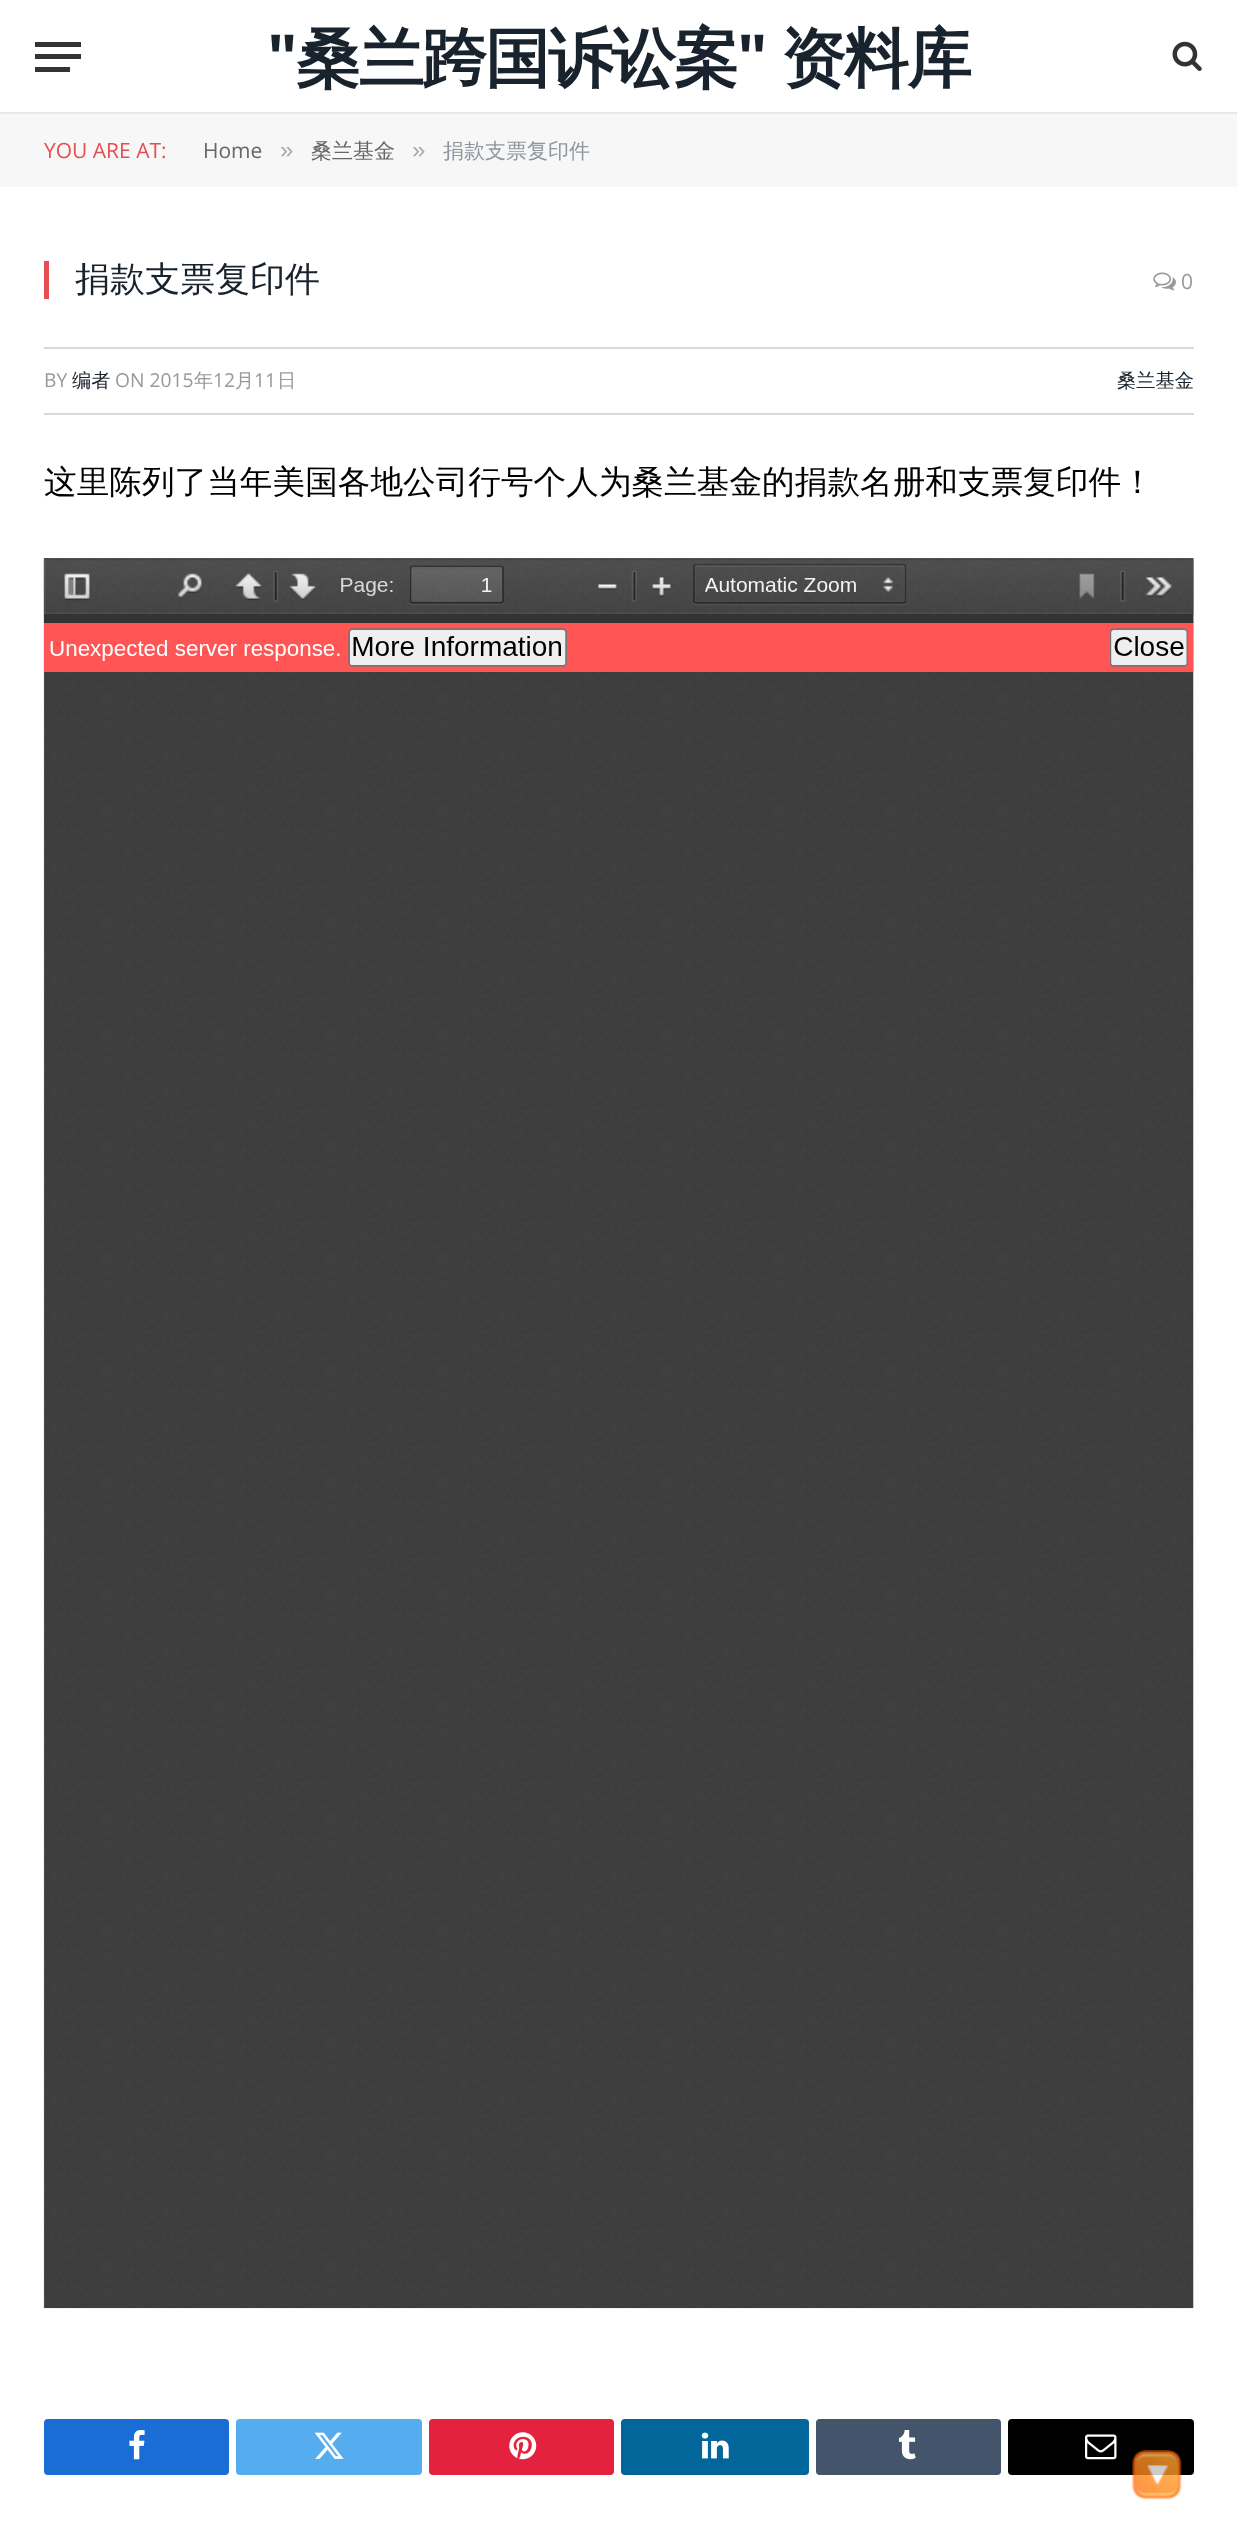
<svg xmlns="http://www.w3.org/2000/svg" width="1237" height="2536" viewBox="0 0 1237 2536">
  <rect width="100%" height="100%" fill="rgb(255,255,255)"/>
  <rect x="0" y="112" width="1237" height="2" fill="rgb(232,232,232)"/>
  <rect x="35" y="67" width="35" height="5" fill="rgb(51,51,51)"/>
  <rect x="35" y="42" width="46" height="5" fill="rgb(51,51,51)"/>
  <rect x="35" y="54" width="46" height="5" fill="rgb(51,51,51)"/>
  <text x="267" y="81" font-family="Open Sans" font-size="64.75" font-weight="bold" letter-spacing="-1.75" fill="rgb(25,35,45)">"</text>
  <text x="296" y="81" font-family="WenQuanYi Zen Hei" font-size="64.75" font-weight="bold" letter-spacing="-1.75" fill="rgb(25,35,45)">桑兰跨国诉讼案</text>
  <text x="737" y="81" font-family="Open Sans" font-size="64.75" font-weight="bold" letter-spacing="-1.75" fill="rgb(25,35,45)">"</text>
  <text x="781" y="81" font-family="WenQuanYi Zen Hei" font-size="64.75" font-weight="bold" letter-spacing="-1.75" fill="rgb(25,35,45)">资料库</text>
  <image x="1172" y="41" width="30" height="30" href="pic1.png"/>
  <rect x="0" y="114" width="1237" height="73" fill="rgb(247,247,247)"/>
  <text x="44" y="158" font-family="Open Sans" font-size="21" fill="rgb(229,78,83)">YOU ARE AT:</text>
  <text x="203" y="158" font-family="Open Sans" font-size="21" fill="rgb(102,102,102)">Home</text>
  <text x="280" y="158" font-family="Liberation Sans" font-size="24" fill="rgb(162,170,178)">»</text>
  <text x="311" y="158" font-family="WenQuanYi Zen Hei" font-size="21" font-weight="500" fill="rgb(102,102,102)">桑兰基金</text>
  <text x="412" y="158" font-family="Liberation Sans" font-size="24" fill="rgb(162,170,178)">»</text>
  <text x="443" y="158" font-family="WenQuanYi Zen Hei" font-size="21" font-weight="500" fill="rgb(141,151,161)">捐款支票复印件</text>
  <rect x="44" y="261" width="5" height="38" fill="rgb(229,78,83)"/>
  <text x="75" y="291" font-family="WenQuanYi Zen Hei" font-size="35" font-weight="500" fill="rgb(25,35,45)">捐款支票复印件</text>
  <image x="1153" y="272" width="23" height="19" href="pic2.png"/>
  <text x="1181" y="289" font-family="Open Sans" font-size="21" fill="rgb(153,153,153)">0</text>
  <rect x="44" y="347" width="1150" height="2" fill="rgb(217,217,217)"/>
  <rect x="44" y="413" width="1150" height="2" fill="rgb(217,217,217)"/>
  <text x="44" y="387" font-family="Open Sans" font-size="19.25" fill="rgb(153,153,153)">BY</text>
  <text x="72" y="387" font-family="WenQuanYi Zen Hei" font-size="19.25" font-weight="500" fill="rgb(25,35,45)">编者</text>
  <text x="115" y="387" font-family="Open Sans" font-size="19.25" fill="rgb(153,153,153)">ON 2015</text>
  <text x="194" y="387" font-family="WenQuanYi Zen Hei" font-size="19.25" font-weight="500" fill="rgb(153,153,153)">年</text>
  <text x="213" y="387" font-family="Open Sans" font-size="19.25" fill="rgb(153,153,153)">12</text>
  <text x="235" y="387" font-family="WenQuanYi Zen Hei" font-size="19.25" font-weight="500" fill="rgb(153,153,153)">月</text>
  <text x="254" y="387" font-family="Open Sans" font-size="19.25" fill="rgb(153,153,153)">11</text>
  <text x="277" y="387" font-family="WenQuanYi Zen Hei" font-size="19.25" font-weight="500" fill="rgb(153,153,153)">日</text>
  <text x="1117" y="387" font-family="WenQuanYi Zen Hei" font-size="19.25" font-weight="500" fill="rgb(25,35,45)">桑兰基金</text>
  <text x="44" y="493" font-family="WenQuanYi Zen Hei" font-size="32.65" font-weight="500" fill="rgb(0,0,0)">这里陈列了当年美国各地公司行号个人为桑兰基金的捐款名册和支票复印件！</text>
  <image x="43" y="558" width="1151" height="1751" href="pic3.png"/>
  <rect x="44" y="2419" width="185" height="56" rx="4" fill="rgb(26,109,212)"/>
  <image x="129" y="2430" width="16" height="30" href="pic4.png"/>
  <rect x="236" y="2419" width="186" height="56" rx="4" fill="rgb(85,172,239)"/>
  <image x="314" y="2432" width="30" height="27" href="pic5.png"/>
  <rect x="429" y="2419" width="185" height="56" rx="4" fill="rgb(228,34,62)"/>
  <image x="509" y="2432" width="28" height="28" href="pic6.png"/>
  <rect x="621" y="2419" width="188" height="56" rx="4" fill="rgb(2,102,154)"/>
  <image x="701" y="2432" width="28" height="27" href="pic7.png"/>
  <rect x="816" y="2419" width="185" height="56" rx="4" fill="rgb(68,84,107)"/>
  <image x="898" y="2430" width="18" height="30" href="pic8.png"/>
  <rect x="1008" y="2419" width="186" height="56" rx="4" fill="rgb(0,0,0)"/>
  <image x="1085" y="2434" width="32" height="26" href="pic9.png"/>
  <image x="1132" y="2450" width="50" height="49" href="pic10.png"/>
</svg>
